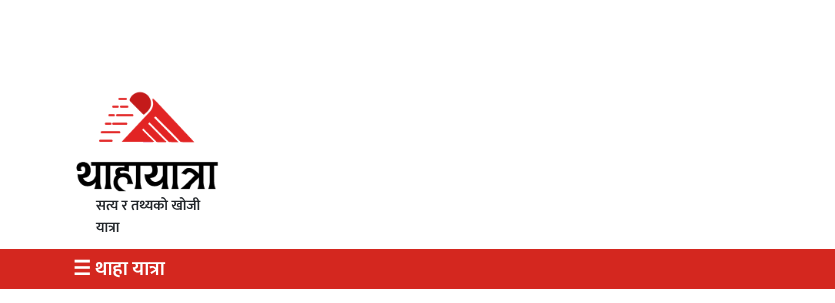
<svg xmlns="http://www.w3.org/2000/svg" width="835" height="303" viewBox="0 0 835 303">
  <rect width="100%" height="100%" fill="rgb(255,255,255)"/>
  <image x="76" y="91" width="143" height="101" href="pic1.png"/>
  <g font-family="Mukta" font-size="14.5" font-weight="600" fill="rgb(33,37,41)">
    <text>
      <tspan x="96" y="210">सत्य र तथ्यको खोजी</tspan>
      <tspan x="96" y="232">यात्रा</tspan>
    </text>
  </g>
  <rect x="0" y="249" width="835" height="40" fill="rgb(212,39,31)"/>
  <text x="73" y="275" font-family="DejaVu Sans" font-size="20" font-weight="bold" fill="rgb(255,255,255)">☰</text>
  <text x="95" y="275" font-family="Mukta" font-size="20" font-weight="600" fill="rgb(255,255,255)">थाहा यात्रा</text>
</svg>
